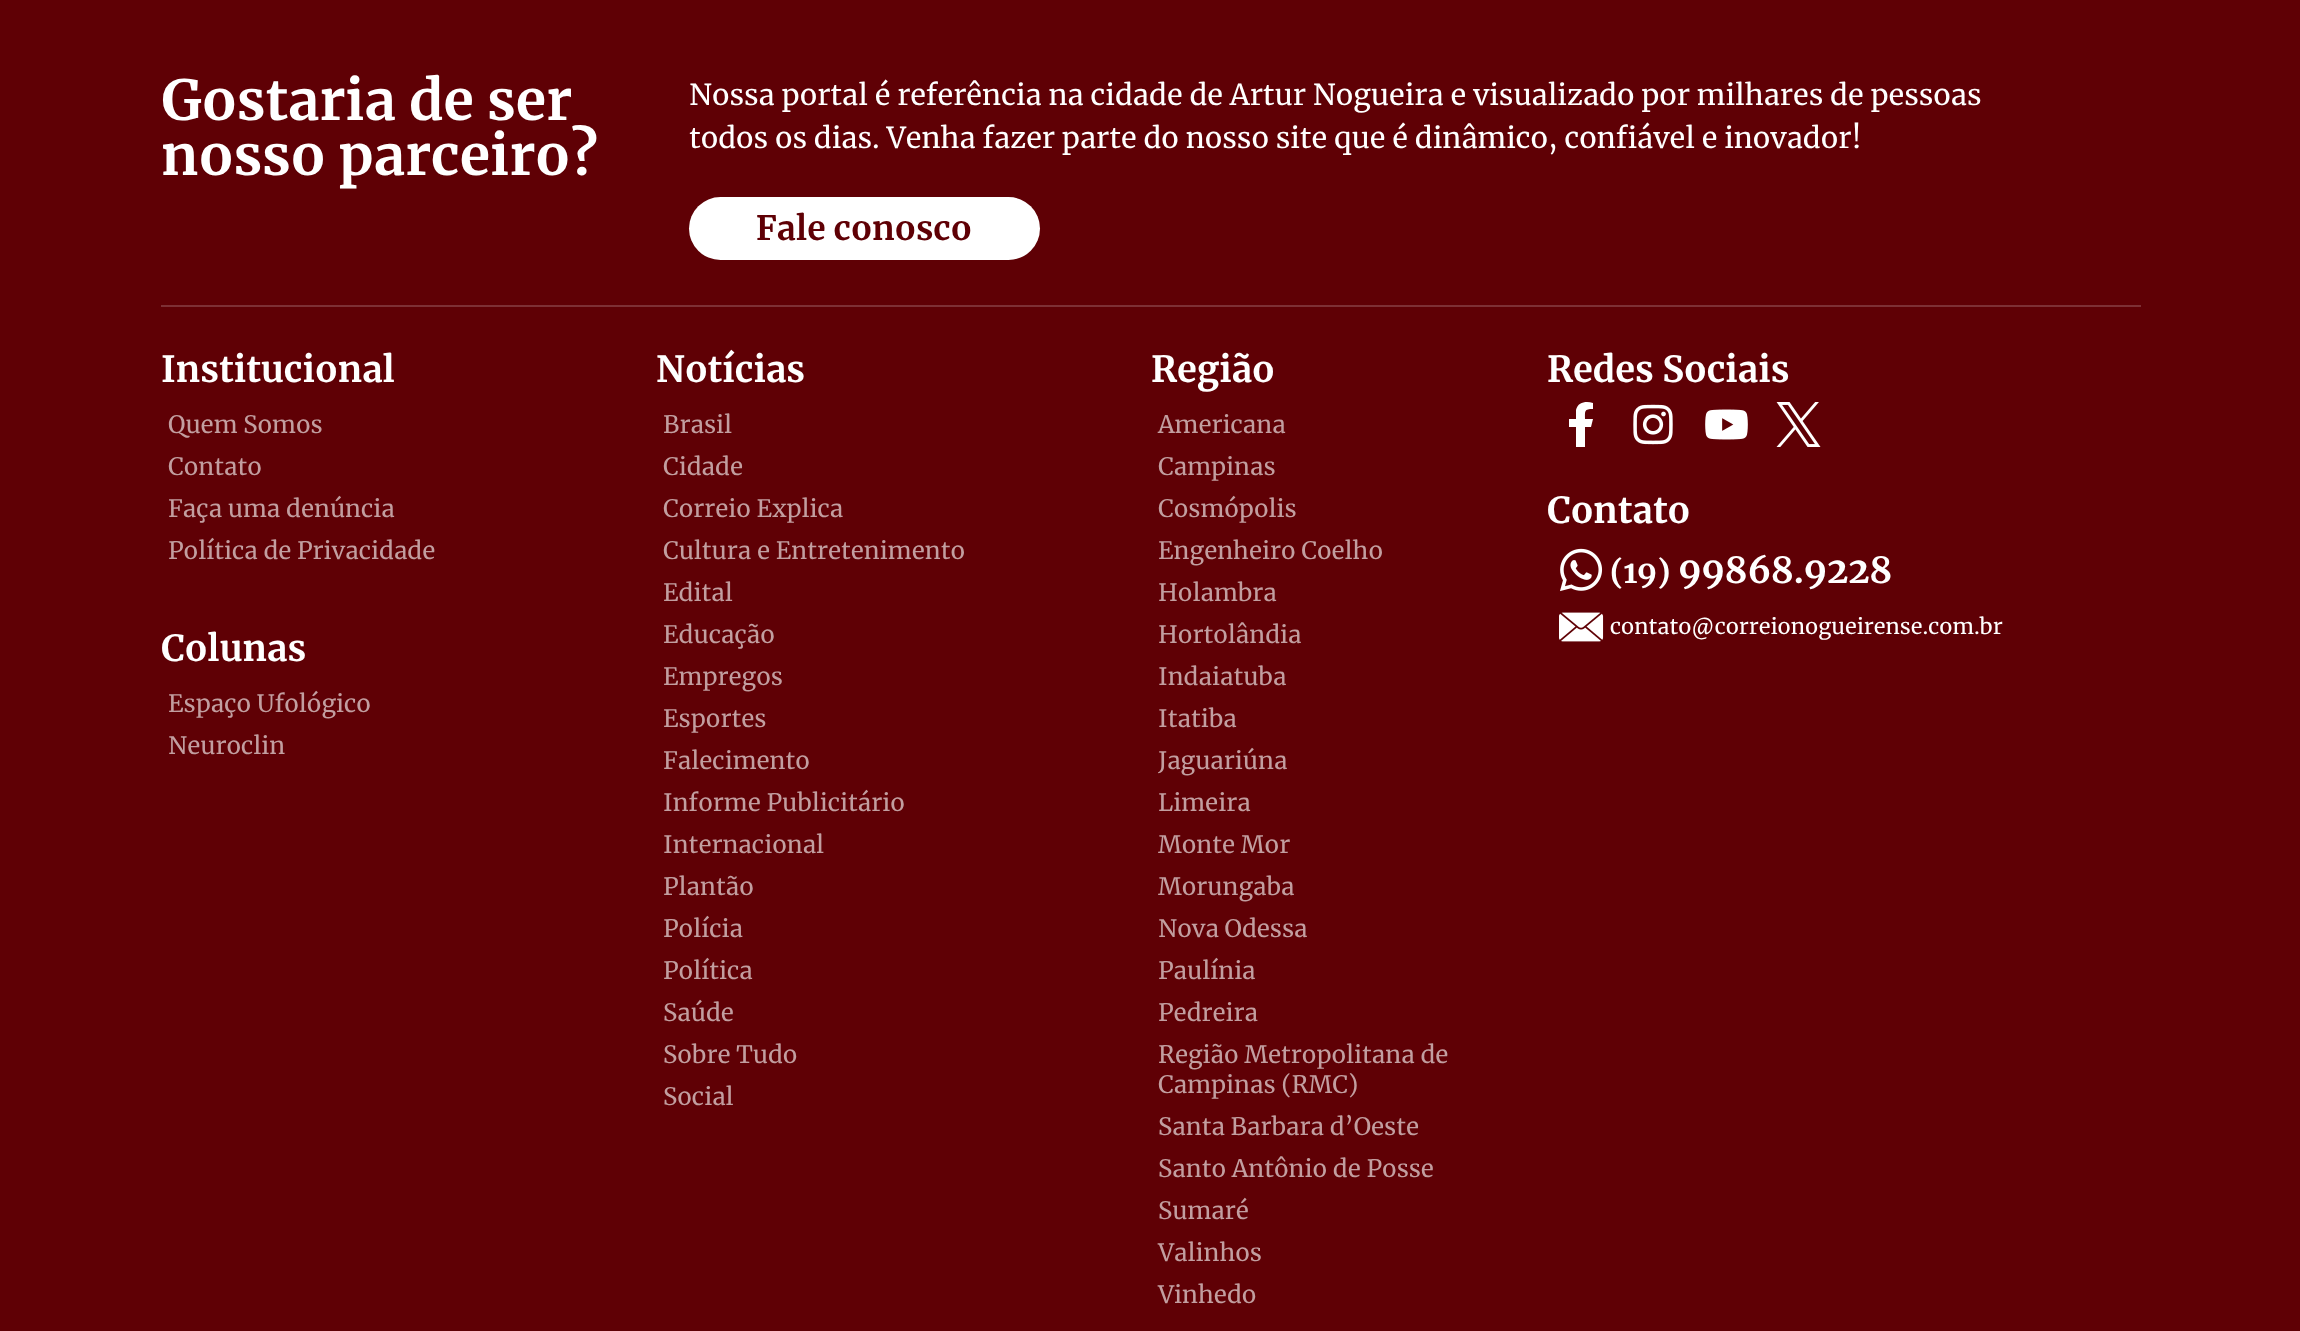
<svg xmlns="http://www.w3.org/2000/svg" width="2300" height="1331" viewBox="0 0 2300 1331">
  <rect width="100%" height="100%" fill="rgb(95,0,5)"/>
  <g font-family="Merriweather" font-size="55.25" font-weight="bold" fill="rgb(255,255,255)">
    <text>
      <tspan x="161" y="120">Gostaria de ser</tspan>
      <tspan x="161" y="175">nosso parceiro?</tspan>
    </text>
  </g>
  <g font-family="Merriweather" font-size="28.8" fill="rgb(255,255,255)">
    <text>
      <tspan x="689" y="105">Nossa portal é referência na cidade de Artur Nogueira e visualizado por milhares de pessoas</tspan>
      <tspan x="689" y="148">todos os dias. Venha fazer parte do nosso site que é dinâmico, confiável e inovador!</tspan>
    </text>
  </g>
  <rect x="689" y="197" width="351" height="63" rx="31.5" fill="rgb(255,255,255)"/>
  <text x="756" y="240" font-family="Merriweather" font-size="33.5" font-weight="bold" fill="rgb(95,0,5)">Fale conosco</text>
  <rect x="161" y="305" width="1980" height="2" fill="rgb(125,48,53)"/>
  <text x="161" y="382" font-family="Merriweather" font-size="36" font-weight="bold" fill="rgb(255,255,255)">Institucional</text>
  <g font-family="Merriweather" font-size="24" fill="rgb(194,158,160)">
    <text>
      <tspan x="168" y="433">Quem Somos</tspan>
      <tspan x="168" y="475">Contato</tspan>
      <tspan x="168" y="517">Faça uma denúncia</tspan>
      <tspan x="168" y="559">Política de Privacidade</tspan>
    </text>
  </g>
  <text x="161" y="661" font-family="Merriweather" font-size="36" font-weight="bold" fill="rgb(255,255,255)">Colunas</text>
  <g font-family="Merriweather" font-size="24" fill="rgb(194,158,160)">
    <text>
      <tspan x="168" y="712">Espaço Ufológico</tspan>
      <tspan x="168" y="754">Neuroclin</tspan>
    </text>
  </g>
  <text x="656" y="382" font-family="Merriweather" font-size="36" font-weight="bold" fill="rgb(255,255,255)">Notícias</text>
  <g font-family="Merriweather" font-size="24" fill="rgb(194,158,160)">
    <text>
      <tspan x="663" y="433">Brasil</tspan>
      <tspan x="663" y="475">Cidade</tspan>
      <tspan x="663" y="517">Correio Explica</tspan>
      <tspan x="663" y="559">Cultura e Entretenimento</tspan>
      <tspan x="663" y="601">Edital</tspan>
      <tspan x="663" y="643">Educação</tspan>
      <tspan x="663" y="685">Empregos</tspan>
      <tspan x="663" y="727">Esportes</tspan>
      <tspan x="663" y="769">Falecimento</tspan>
      <tspan x="663" y="811">Informe Publicitário</tspan>
      <tspan x="663" y="853">Internacional</tspan>
      <tspan x="663" y="895">Plantão</tspan>
      <tspan x="663" y="937">Polícia</tspan>
      <tspan x="663" y="979">Política</tspan>
      <tspan x="663" y="1021">Saúde</tspan>
      <tspan x="663" y="1063">Sobre Tudo</tspan>
      <tspan x="663" y="1105">Social</tspan>
    </text>
  </g>
  <text x="1151" y="382" font-family="Merriweather" font-size="36" font-weight="bold" fill="rgb(255,255,255)">Região</text>
  <g font-family="Merriweather" font-size="24" fill="rgb(194,158,160)">
    <text>
      <tspan x="1158" y="433">Americana</tspan>
      <tspan x="1158" y="475">Campinas</tspan>
      <tspan x="1158" y="517">Cosmópolis</tspan>
      <tspan x="1158" y="559">Engenheiro Coelho</tspan>
      <tspan x="1158" y="601">Holambra</tspan>
      <tspan x="1158" y="643">Hortolândia</tspan>
      <tspan x="1158" y="685">Indaiatuba</tspan>
      <tspan x="1158" y="727">Itatiba</tspan>
      <tspan x="1158" y="769">Jaguariúna</tspan>
      <tspan x="1158" y="811">Limeira</tspan>
      <tspan x="1158" y="853">Monte Mor</tspan>
      <tspan x="1158" y="895">Morungaba</tspan>
      <tspan x="1158" y="937">Nova Odessa</tspan>
      <tspan x="1158" y="979">Paulínia</tspan>
      <tspan x="1158" y="1021">Pedreira</tspan>
      <tspan x="1158" y="1063">Região Metropolitana de</tspan>
      <tspan x="1158" y="1093">Campinas (RMC)</tspan>
      <tspan x="1158" y="1135">Santa Barbara d’Oeste</tspan>
      <tspan x="1158" y="1177">Santo Antônio de Posse</tspan>
      <tspan x="1158" y="1219">Sumaré</tspan>
      <tspan x="1158" y="1261">Valinhos</tspan>
      <tspan x="1158" y="1303">Vinhedo</tspan>
    </text>
  </g>
  <text x="1547" y="382" font-family="Merriweather" font-size="36" font-weight="bold" fill="rgb(255,255,255)">Redes Sociais</text>
  <path d="M1591 427L1593 419H1585C1585 411 1584 409 1593 409V403C1586 401 1578 402 1576 410V419H1569V427H1576V447H1585V427Z" fill="rgb(255,255,255)"/>
  <image x="1633" y="404" width="40" height="41" href="pic1.png"/>
  <image x="1705" y="409" width="43" height="31" href="pic2.png"/>
  <image x="1776" y="402" width="45" height="45" href="pic3.png"/>
  <text x="1547" y="523" font-family="Merriweather" font-size="36" font-weight="bold" fill="rgb(255,255,255)">Contato</text>
  <image x="1560" y="548" width="43" height="44" href="pic4.png"/>
  <text x="1610" y="583" font-family="Merriweather" font-size="31" font-weight="bold" letter-spacing="-0.5" fill="rgb(255,255,255)">(19)</text>
  <text x="1678" y="583" font-family="Merriweather" font-size="36" font-weight="bold" letter-spacing="-0.5" fill="rgb(255,255,255)">99868.9228</text>
  <image x="1559" y="612" width="45" height="30" href="pic5.png"/>
  <text x="1610" y="634" font-family="Merriweather" font-size="21.6" fill="rgb(255,255,255)">contato@correionogueirense.com.br</text>
</svg>
